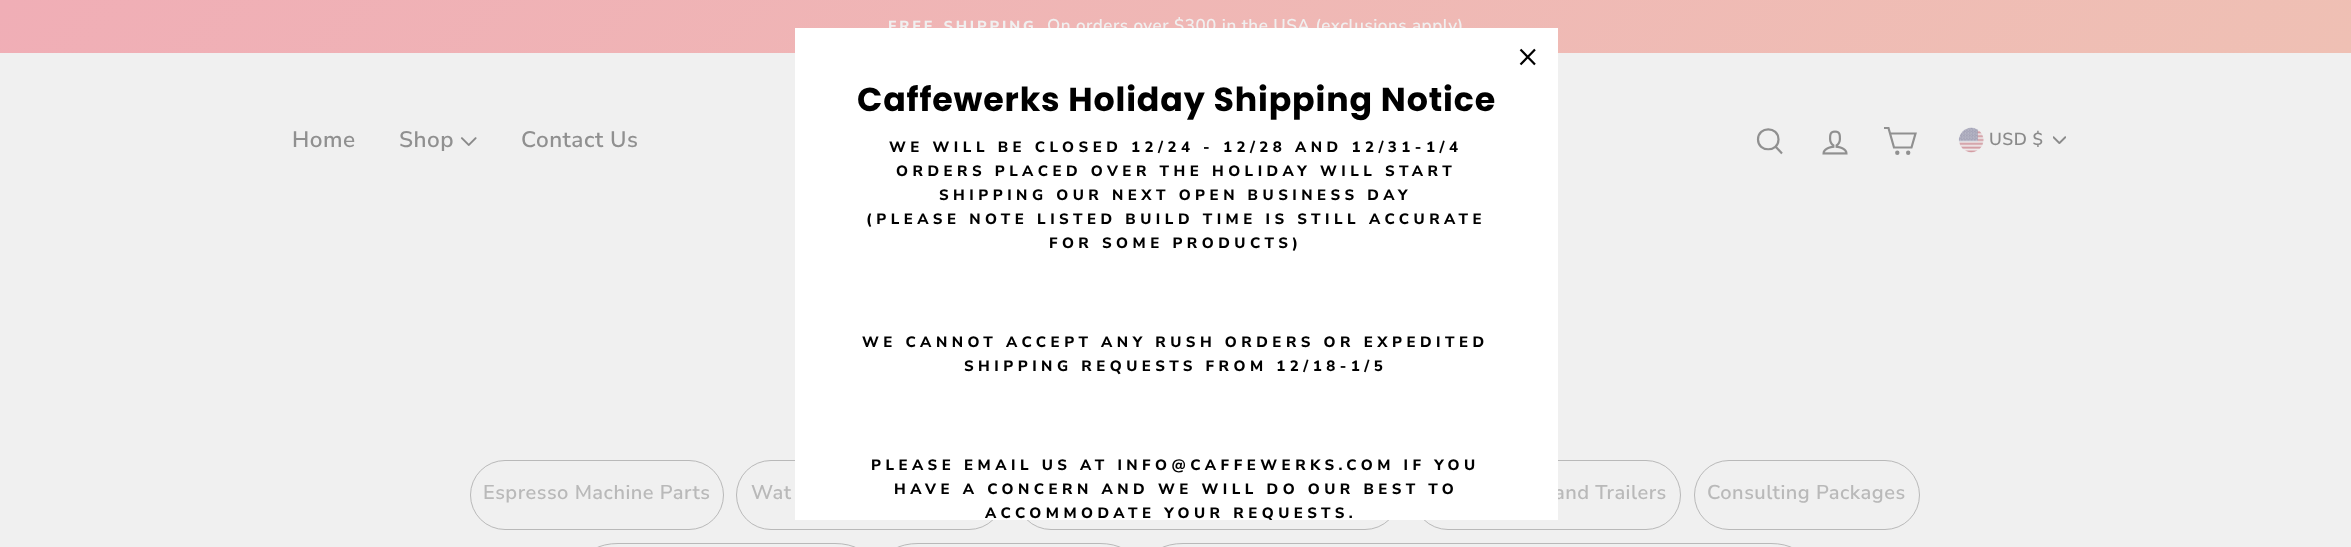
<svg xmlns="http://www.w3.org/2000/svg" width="2351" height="547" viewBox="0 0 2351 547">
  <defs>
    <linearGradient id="g1" gradientUnits="userSpaceOnUse" x1="575" y1="-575" x2="1777" y2="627"><stop offset="0" stop-color="rgb(240,174,182)"/><stop offset="1" stop-color="rgb(239,192,180)"/></linearGradient>
    <clipPath id="clip1"><rect x="795" y="28" width="763" height="492"/></clipPath>
  </defs>
  <rect width="100%" height="100%" fill="rgb(240,240,240)"/>
  <rect x="0" y="0" width="2351" height="53" fill="url(#g1)"/>
  <text x="888" y="31" word-spacing="1" font-family="Nunito Sans" font-size="14.5" font-weight="800" letter-spacing="2.9" fill="rgb(240,240,240)">FREE SHIPPING</text>
  <text x="1047" y="31" font-family="Nunito Sans" font-size="17" font-weight="600" letter-spacing="0.5" fill="rgb(240,240,240)">On orders over $300 in the USA (exclusions apply)</text>
  <rect x="0" y="53" width="2351" height="175" fill="rgba(138,138,138,0.2)" filter="blur(0.5px)"/>
  <rect x="0" y="53" width="2351" height="175" fill="rgb(240,240,240)"/>
  <g font-family="Nunito Sans" font-size="22.5" font-weight="600" letter-spacing="0.5" fill="rgb(144,144,144)">
    <text x="292" y="147">Home</text>
    <text x="399" y="147">Shop</text>
  </g>
  <image x="460" y="137" width="17" height="9" href="pic1.png"/>
  <text x="521" y="147" font-family="Nunito Sans" font-size="22.5" font-weight="600" letter-spacing="0.5" fill="rgb(144,144,144)">Contact Us</text>
  <path d="M1778.5 139.5C1778.5 152.5 1758 152.5 1758 139.5C1758 126 1778.5 126 1778.5 139.5ZM1782 153.5L1775.5 146.5" fill="none" stroke="rgb(144,144,144)" stroke-width="2.2"/>
  <image x="1822" y="130" width="26" height="25" href="pic2.png"/>
  <path d="M1890 133.5H1915.5L1911.5 147.5H1894L1888.5 128H1884" fill="none" stroke="rgb(144,144,144)" stroke-width="2.2"/>
  <circle cx="1897.3" cy="152.7" r="1.1" fill="none" stroke="rgb(144,144,144)" stroke-width="2.2"/>
  <circle cx="1908.2" cy="152.7" r="1.1" fill="none" stroke="rgb(144,144,144)" stroke-width="2.2"/>
  <image x="2053" y="136" width="13" height="8" href="pic3.png"/>
  <image x="1958" y="127" width="26" height="26" href="pic4.png"/>
  <text x="1989" y="145" font-family="Nunito Sans" font-size="17.5" font-weight="600" letter-spacing="0.5" fill="rgb(138,138,138)">USD $</text>
  <rect x="470.5" y="460.5" width="253" height="69" rx="34.5" fill="none" stroke="rgb(185,185,185)"/>
  <text x="483" y="499" font-family="Nunito Sans" font-size="20" font-weight="600" letter-spacing="0.5" fill="rgb(185,185,185)">Espresso Machine Parts</text>
  <rect x="736.5" y="460.5" width="267" height="69" rx="34.5" fill="none" stroke="rgb(185,185,185)"/>
  <text x="751" y="499" font-family="Nunito Sans" font-size="20" font-weight="600" letter-spacing="0.5" fill="rgb(185,185,185)">Wat</text>
  <rect x="1016.5" y="460.5" width="383" height="69" rx="34.5" fill="none" stroke="rgb(185,185,185)"/>
  <rect x="1413.5" y="460.5" width="267" height="69" rx="34.5" fill="none" stroke="rgb(185,185,185)"/>
  <text x="1554" y="499" font-family="Nunito Sans" font-size="20" font-weight="600" letter-spacing="0.5" fill="rgb(185,185,185)">and Trailers</text>
  <rect x="1694.5" y="460.5" width="225" height="69" rx="34.5" fill="none" stroke="rgb(185,185,185)"/>
  <text x="1707" y="499" font-family="Nunito Sans" font-size="20" font-weight="600" letter-spacing="0.5" fill="rgb(185,185,185)">Consulting Packages</text>
  <rect x="583.5" y="543.5" width="286" height="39" rx="34.5" fill="none" stroke="rgb(185,185,185)"/>
  <rect x="883.5" y="543.5" width="251" height="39" rx="34.5" fill="none" stroke="rgb(185,185,185)"/>
  <rect x="1148.5" y="543.5" width="657" height="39" rx="34.5" fill="none" stroke="rgb(185,185,185)"/>
  <rect x="795" y="28" width="763" height="492" fill="rgb(255,255,255)"/>
  <path d="M1520.5 49.5L1535 64.5M1535 49.5L1520.5 64.5" fill="none" stroke="rgb(0,0,0)" stroke-width="2.2"/>
  <text x="857" y="111" font-family="Poppins" font-size="33.25" font-weight="bold" letter-spacing="0.85" fill="rgb(0,0,0)">Caffewerks Holiday Shipping Notice</text>
  <g font-family="Nunito Sans" font-size="15" font-weight="800" letter-spacing="4.5" fill="rgb(0,0,0)">
    <text x="889" y="152">WE WILL BE CLOSED 12/24 - 12/28 AND 12/31-1/4</text>
    <text x="896" y="176">ORDERS PLACED OVER THE HOLIDAY WILL START</text>
    <text x="939" y="200">SHIPPING OUR NEXT OPEN BUSINESS DAY</text>
    <text x="866" y="224">(PLEASE NOTE LISTED BUILD TIME IS STILL ACCURATE</text>
    <text x="1049" y="248">FOR SOME PRODUCTS)</text>
    <text x="862" y="347">WE CANNOT ACCEPT ANY RUSH ORDERS OR EXPEDITED</text>
    <text x="964" y="371">SHIPPING REQUESTS FROM 12/18-1/5</text>
    <text x="871" y="470">PLEASE EMAIL US AT INFO@CAFFEWERKS.COM IF YOU</text>
    <text x="894" y="494">HAVE A CONCERN AND WE WILL DO OUR BEST TO</text>
  </g>
  <g clip-path="url(#clip1)">
    <text x="985" y="518" font-family="Nunito Sans" font-size="15" font-weight="800" letter-spacing="4.5" fill="rgb(0,0,0)">ACCOMMODATE YOUR REQUESTS.</text>
  </g>
</svg>
